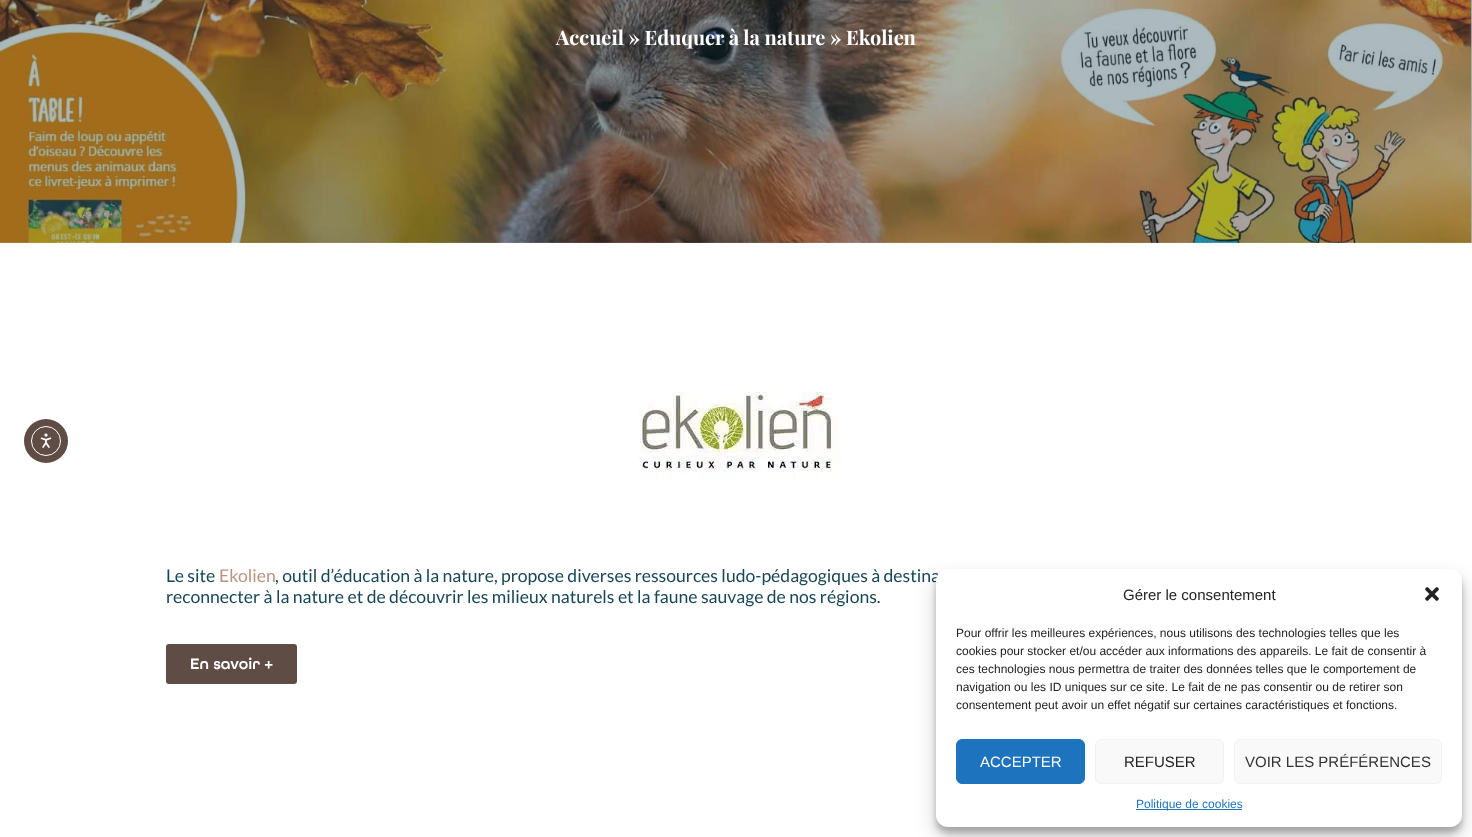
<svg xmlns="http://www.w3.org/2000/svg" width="1472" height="837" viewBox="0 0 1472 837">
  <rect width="100%" height="100%" fill="rgb(255,255,255)"/>
  <circle cx="46" cy="441" r="22" fill="rgb(95,77,69)"/>
  <circle cx="46" cy="441" r="14.5" fill="none" stroke="rgb(255,255,255)"/>
  <image x="40" y="433" width="12" height="15" href="pic1.png"/>
  <image x="0" y="0" width="1472" height="243" href="pic2.png"/>
  <text x="556" y="45" font-family="Playfair Display" font-size="20" font-weight="bold" fill="rgb(255,255,255)">Accueil » Eduquer à la nature » Ekolien</text>
  <image x="638" y="391" width="202" height="89" href="pic3.png"/>
  <text x="166" y="582" font-family="Lato" font-size="17.6" fill="rgb(23,70,87)">Le site</text>
  <text x="219" y="582" font-family="Lato" font-size="17.6" fill="rgb(186,147,130)">Ekolien</text>
  <g font-family="Lato" font-size="17.6" fill="rgb(23,70,87)">
    <text x="275" y="582">, outil d’éducation à la nature, propose diverses ressources ludo-pédagogiques à destina</text>
    <text x="166" y="603">reconnecter à la nature et de découvrir les milieux naturels et la faune sauvage de nos régions.</text>
  </g>
  <rect x="166" y="644" width="131" height="40" rx="3" fill="rgb(95,77,69)"/>
  <text x="190" y="669" font-family="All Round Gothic" font-size="16" font-weight="600" fill="rgb(255,255,255)">En savoir +</text>
  <rect x="936" y="575" width="526" height="258" rx="12" fill="rgba(0,0,0,0.23)" filter="blur(3px)"/>
  <rect x="936" y="579" width="526" height="258" rx="12" fill="rgba(0,0,0,0.19)" filter="blur(10px)"/>
  <rect x="936" y="569" width="526" height="258" rx="12" fill="rgb(255,255,255)"/>
  <text x="1123" y="600" font-family="Liberation Sans" font-size="15" fill="rgb(34,34,34)">Gérer le consentement</text>
  <image x="1425" y="587" width="14" height="14" href="pic4.png"/>
  <g font-family="Liberation Sans" font-size="12" fill="rgb(34,34,34)">
    <text>
      <tspan x="956" y="637">Pour offrir les meilleures expériences, nous utilisons des technologies telles que les</tspan>
      <tspan x="956" y="655">cookies pour stocker et/ou accéder aux informations des appareils. Le fait de consentir à</tspan>
      <tspan x="956" y="673">ces technologies nous permettra de traiter des données telles que le comportement de</tspan>
      <tspan x="956" y="691">navigation ou les ID uniques sur ce site. Le fait de ne pas consentir ou de retirer son</tspan>
      <tspan x="956" y="709">consentement peut avoir un effet négatif sur certaines caractéristiques et fonctions.</tspan>
    </text>
  </g>
  <rect x="956.5" y="739.5" width="128" height="44" rx="5.5" fill="rgb(30,115,190)" stroke="rgb(30,115,190)"/>
  <text x="980" y="767" font-family="Liberation Sans" font-size="15" fill="rgb(255,255,255)">ACCEPTER</text>
  <rect x="1095.5" y="739.5" width="128" height="44" rx="5.5" fill="rgb(249,249,249)" stroke="rgb(242,242,242)"/>
  <text x="1124" y="767" font-family="Liberation Sans" font-size="15" fill="rgb(34,34,34)">REFUSER</text>
  <rect x="1234.5" y="739.5" width="207" height="44" rx="5.5" fill="rgb(249,249,249)" stroke="rgb(242,242,242)"/>
  <text x="1245" y="767" font-family="Liberation Sans" font-size="15" fill="rgb(51,51,51)">VOIR LES PRÉFÉRENCES</text>
  <rect x="1136" y="809" width="106" height="1" fill="rgb(30,115,190)"/>
  <text x="1136" y="808" font-family="Liberation Sans" font-size="12" fill="rgb(30,115,190)">Politique de cookies</text>
</svg>
